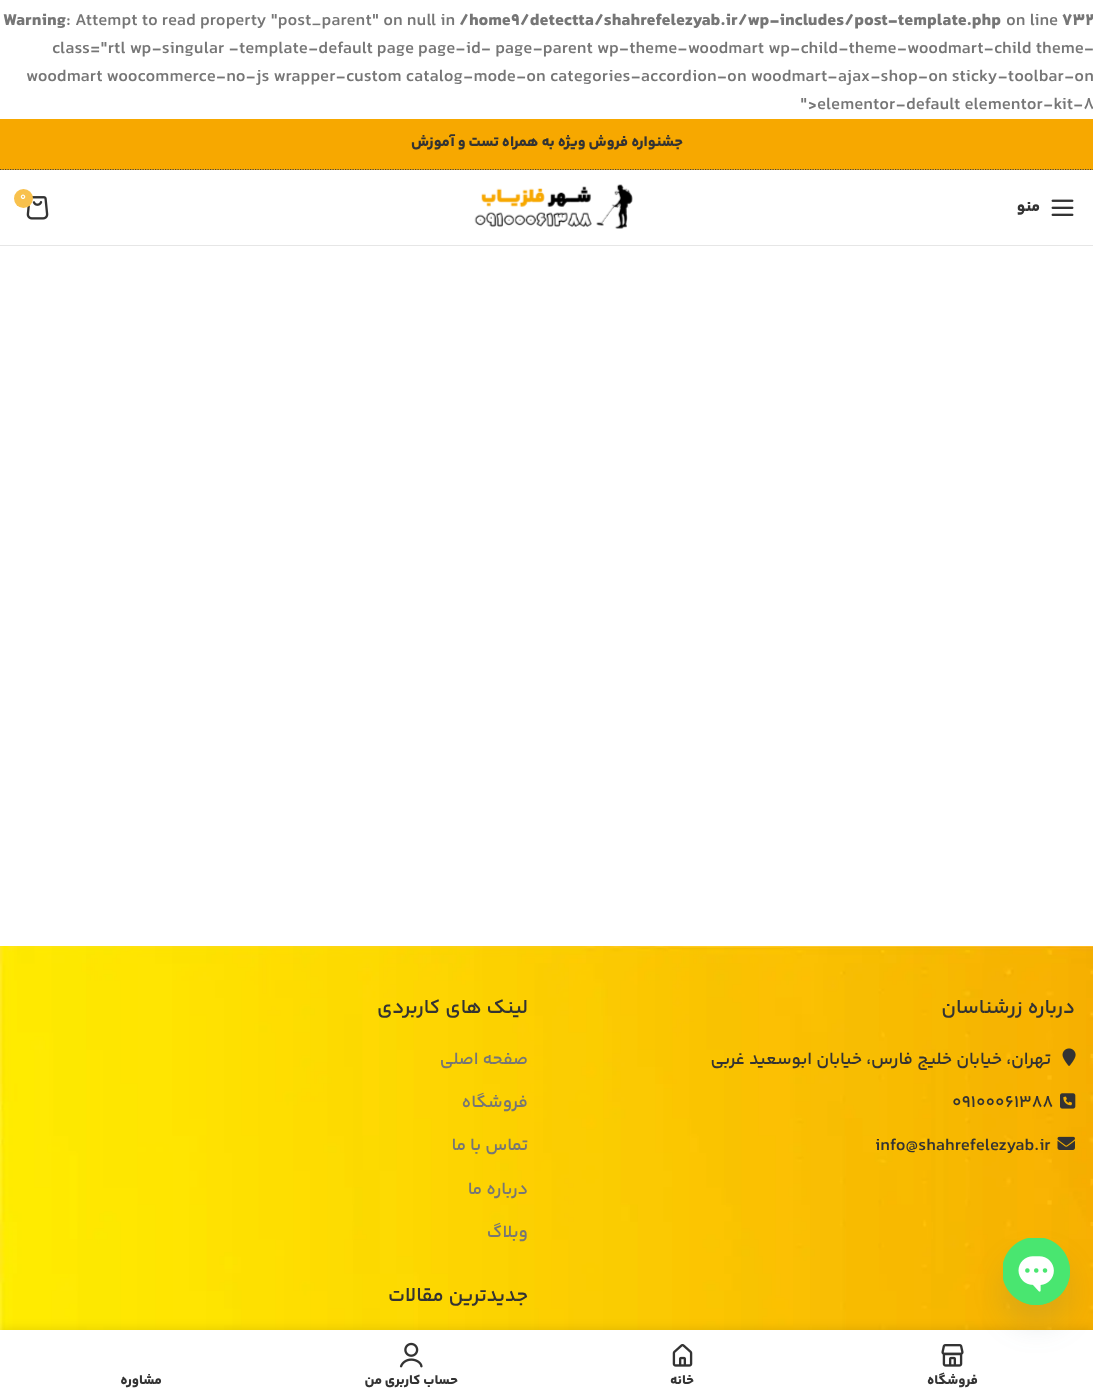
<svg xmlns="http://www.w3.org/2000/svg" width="1093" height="1398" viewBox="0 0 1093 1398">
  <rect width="100%" height="100%" fill="rgb(255,255,255)"/>
  <text x="3" y="25" font-family="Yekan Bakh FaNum" font-size="17.5" font-weight="800" fill="rgb(118,118,118)">Warning</text>
  <text x="66" y="25" font-family="Yekan Bakh FaNum" font-size="17.5" font-weight="600" fill="rgb(118,118,118)">: Attempt to read property "post_parent" on null in</text>
  <text x="459" y="25" font-family="Yekan Bakh FaNum" font-size="17.5" font-weight="800" fill="rgb(118,118,118)">/home9/detectta/shahrefelezyab.ir/wp-includes/post-template.php</text>
  <text x="1006" y="25" font-family="Yekan Bakh FaNum" font-size="17.5" font-weight="600" fill="rgb(118,118,118)">on line</text>
  <text x="1062" y="25" font-family="Yekan Bakh FaNum" font-size="17.5" font-weight="800" fill="rgb(118,118,118)">732</text>
  <g font-family="Yekan Bakh FaNum" font-size="17.5" font-weight="600" fill="rgb(118,118,118)">
    <text x="52" y="53">class="rtl wp-singular -template-default page page-id- page-parent wp-theme-woodmart wp-child-theme-woodmart-child theme-</text>
    <text x="26" y="81">woodmart woocommerce-no-js wrapper-custom catalog-mode-on categories-accordion-on woodmart-ajax-shop-on sticky-toolbar-on</text>
    <text x="800" y="109">"&gt;elementor-default elementor-kit-8</text>
  </g>
  <rect x="0" y="119" width="1093" height="51" fill="rgb(247,168,0)"/>
  <path d="M0 169.5H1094" fill="none" stroke="rgb(68,68,68)" stroke-width="1.2" stroke-dasharray="1.25 1.25"/>
  <text x="683" y="146" font-family="Yekan Bakh FaNum" font-size="15" font-weight="800" direction="rtl" fill="rgb(51,51,51)">جشنواره فروش ویژه به همراه تست و آموزش</text>
  <rect x="0" y="170" width="1093" height="1" fill="rgb(255,255,255)"/>
  <rect x="0" y="245" width="1093" height="1" fill="rgb(230,230,230)"/>
  <image x="26" y="196" width="23" height="24" href="pic1.png"/>
  <circle cx="23.5" cy="198.5" r="9.5" fill="rgb(248,193,77)"/>
  <text x="20" y="200" font-family="Yekan Bakh FaNum" font-size="11" font-weight="600" fill="rgb(255,255,255)">0</text>
  <image x="474" y="184" width="159" height="45" href="pic2.png"/>
  <text x="1040" y="211" font-family="Yekan Bakh FaNum" font-size="16" font-weight="800" direction="rtl" fill="rgb(51,51,51)">منو</text>
  <image x="1051" y="199" width="23" height="17" href="pic3.png"/>
  <image x="0" y="946" width="1093" height="384" href="pic4.png"/>
  <text x="528" y="1013" font-family="Yekan Bakh FaNum" font-size="20" font-weight="600" direction="rtl" fill="rgb(51,51,51)">لینک های کاربردی</text>
  <g font-family="Yekan Bakh FaNum" font-size="17.5" font-weight="600" direction="rtl" fill="rgb(118,118,118)">
    <text x="528" y="1064">صفحه اصلی</text>
    <text x="528" y="1107">فروشگاه</text>
    <text x="528" y="1150">تماس با ما</text>
    <text x="528" y="1194">درباره ما</text>
    <text x="528" y="1237">وبلاگ</text>
  </g>
  <text x="1075" y="1013" font-family="Yekan Bakh FaNum" font-size="20" font-weight="600" direction="rtl" fill="rgb(51,51,51)">درباره زرشناسان</text>
  <text x="1051" y="1064" font-family="Yekan Bakh FaNum" font-size="17.5" font-weight="600" direction="rtl" fill="rgb(51,51,51)">تهران، خیابان خلیج فارس، خیابان ابوسعید غربی</text>
  <image x="1062" y="1048" width="14" height="18" href="pic5.png"/>
  <text x="952" y="1107" font-family="Yekan Bakh FaNum" font-size="17.5" font-weight="600" fill="rgb(51,51,51)">09100061388</text>
  <image x="1060" y="1093" width="16" height="16" href="pic6.png"/>
  <text x="875" y="1150" font-family="Yekan Bakh FaNum" font-size="17.5" font-weight="600" fill="rgb(51,51,51)">info@shahrefelezyab.ir</text>
  <image x="1057" y="1136" width="18" height="14" href="pic7.png"/>
  <text x="528" y="1301" font-family="Yekan Bakh FaNum" font-size="20" font-weight="600" direction="rtl" fill="rgb(51,51,51)">جدیدترین مقالات</text>
  <rect x="0" y="1330" width="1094" height="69" fill="rgba(0,0,0,0.12)" filter="blur(5.5px)"/>
  <rect x="0" y="1330" width="1093" height="68" fill="rgb(255,255,255)"/>
  <image x="941" y="1344" width="23" height="23" href="pic11.png"/>
  <rect x="1003" y="1258" width="67" height="67" rx="33.5" fill="rgba(73,104,126,0.16)" filter="blur(15px)"/>
  <circle cx="1036.5" cy="1271.5" r="33.5" fill="rgb(73,230,112)"/>
  <image x="1003" y="1238" width="67" height="67" href="pic8.png"/>
  <text x="162" y="1384" font-family="Yekan Bakh FaNum" font-size="13.75" font-weight="800" direction="rtl" fill="rgb(51,51,51)">مشاوره</text>
  <image x="399" y="1342" width="24" height="26" href="pic9.png"/>
  <text x="458" y="1384" font-family="Yekan Bakh FaNum" font-size="13.75" font-weight="800" direction="rtl" fill="rgb(51,51,51)">حساب کاربری من</text>
  <image x="672" y="1344" width="21" height="23" href="pic10.png"/>
  <g font-family="Yekan Bakh FaNum" font-size="13.75" font-weight="800" direction="rtl" fill="rgb(51,51,51)">
    <text x="694" y="1384">خانه</text>
    <text x="978" y="1384">فروشگاه</text>
  </g>
</svg>
